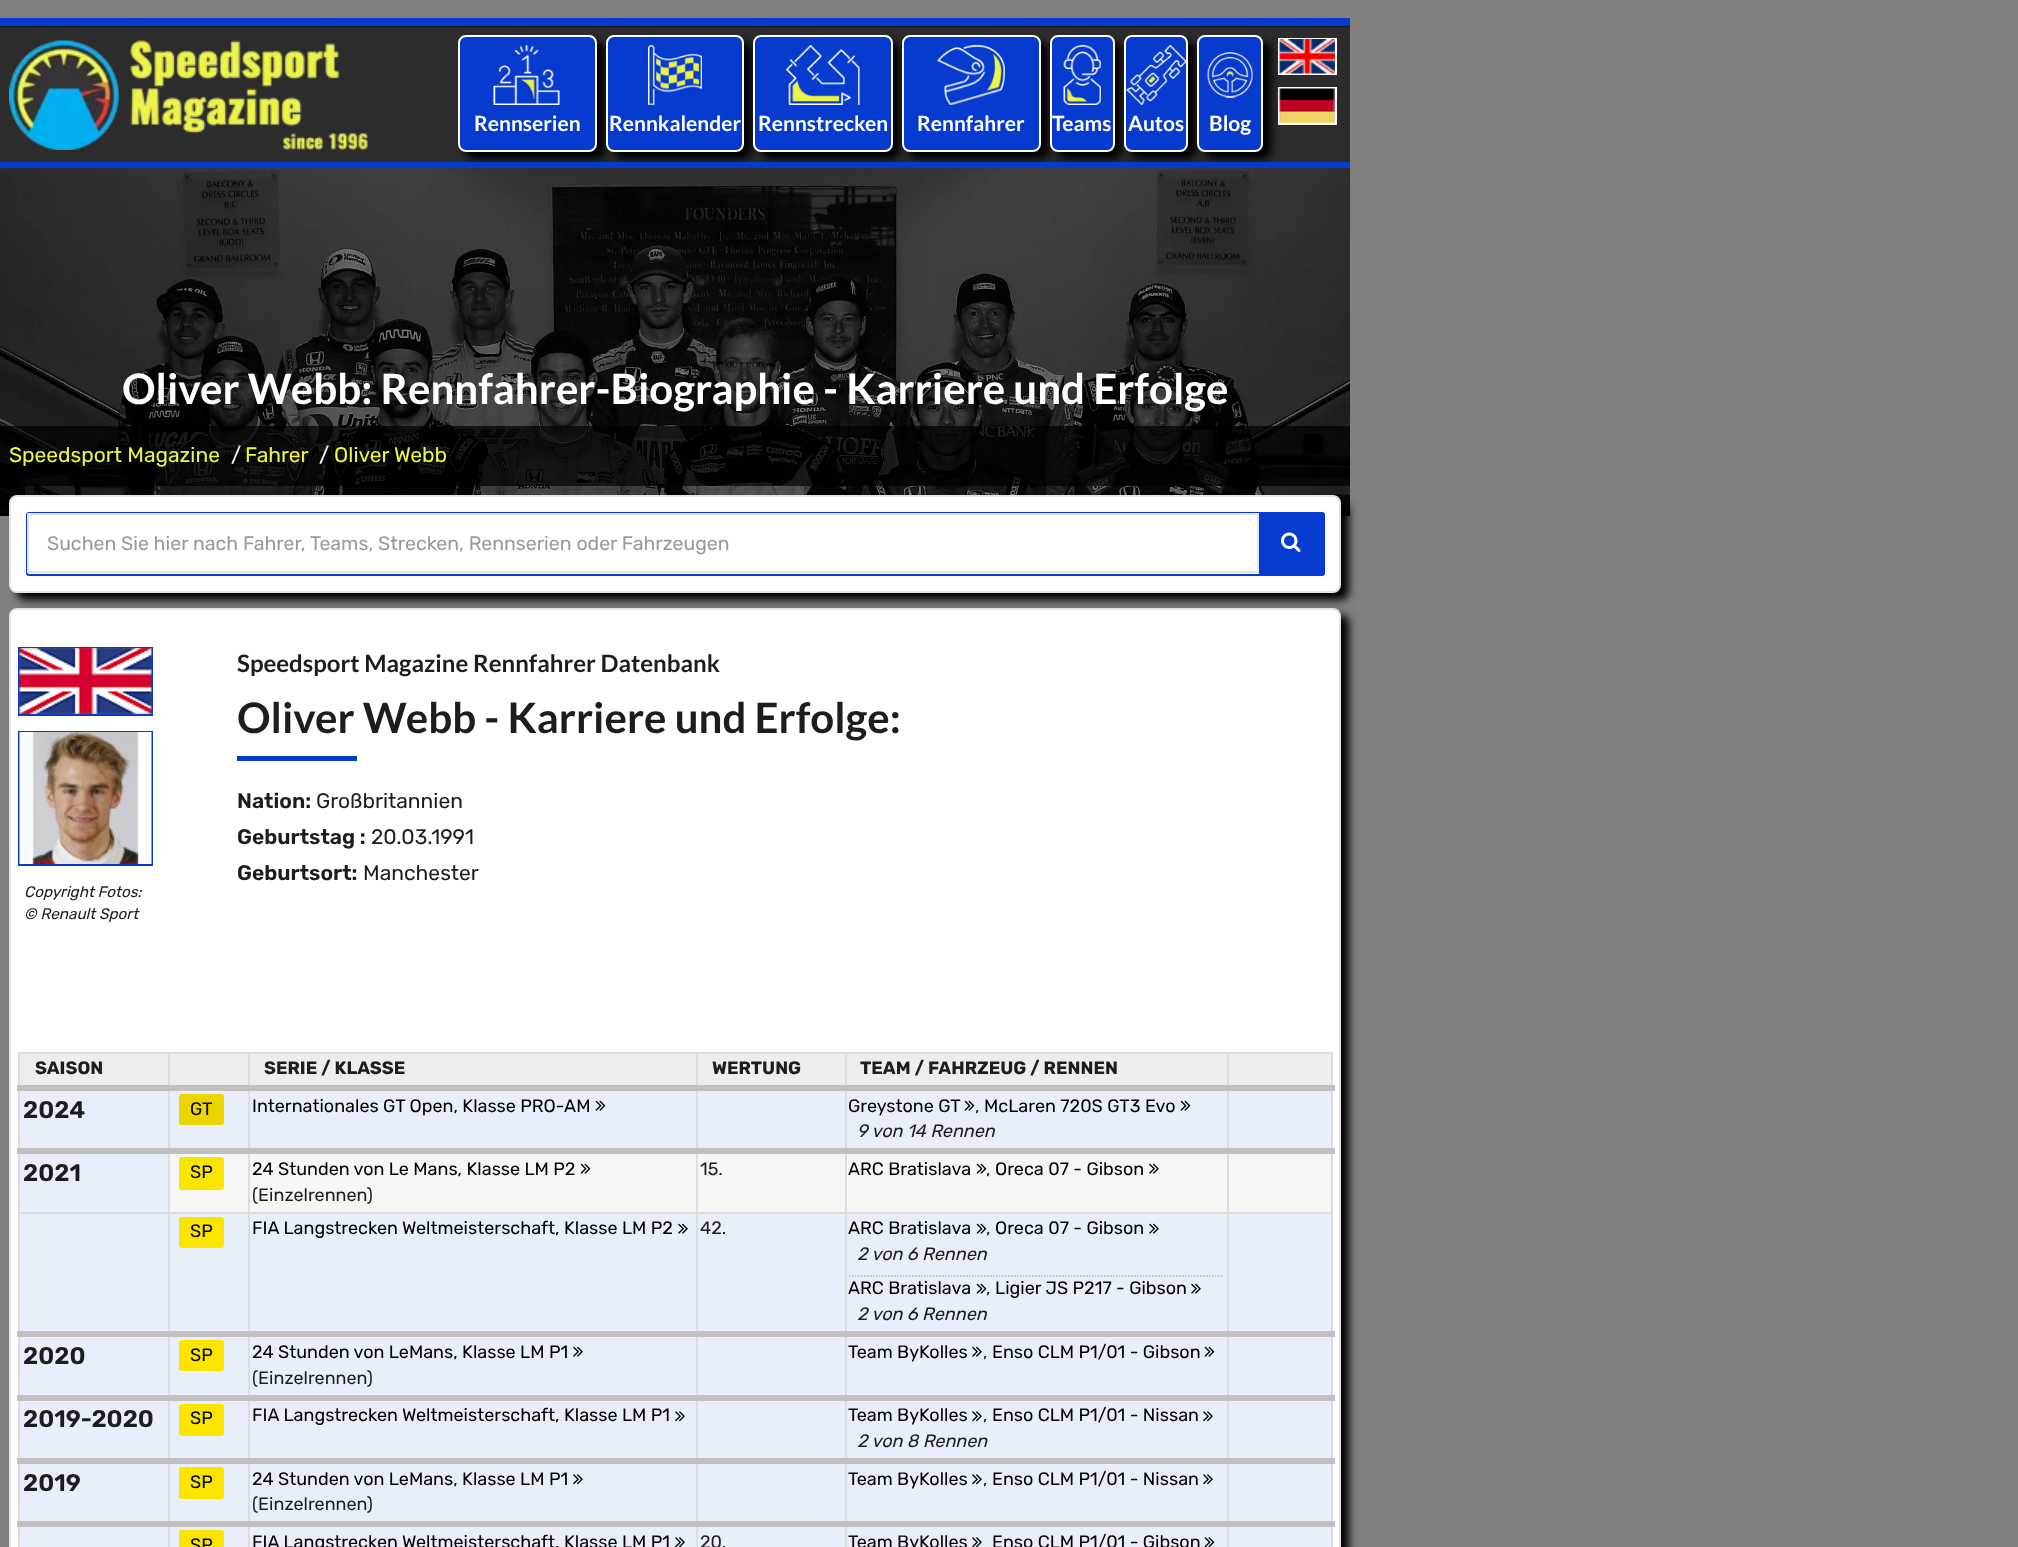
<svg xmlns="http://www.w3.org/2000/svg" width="2018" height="1547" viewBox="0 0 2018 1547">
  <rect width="100%" height="100%" fill="rgb(128,128,128)"/>
  <rect x="0" y="18" width="1350" height="8" fill="rgb(7,59,207)"/>
  <rect x="0" y="26" width="1350" height="1" fill="rgb(29,29,29)"/>
  <rect x="0" y="27" width="1350" height="135" fill="rgb(44,44,44)"/>
  <image x="9" y="40" width="359" height="110" href="pic1.png"/>
  <image x="0" y="168" width="1350" height="348" href="pic11.png"/>
  <rect x="465" y="42" width="140" height="117" rx="8" fill="rgb(0,0,0)" filter="blur(4px)"/>
  <rect x="459" y="36" width="137" height="115" rx="7" fill="rgb(7,59,207)" stroke="rgb(255,255,255)" stroke-width="2"/>
  <image x="493" y="45" width="67" height="60" href="pic2.png"/>
  <text x="474" y="131" font-family="Lato" font-size="21" font-weight="bold" fill="rgb(255,255,255)">Rennserien</text>
  <rect x="614" y="42" width="138" height="117" rx="8" fill="rgb(0,0,0)" filter="blur(4px)"/>
  <rect x="607" y="36" width="136" height="115" rx="7" fill="rgb(7,59,207)" stroke="rgb(255,255,255)" stroke-width="2"/>
  <image x="648" y="45" width="54" height="60" href="pic3.png"/>
  <text x="609" y="131" font-family="Lato" font-size="21" font-weight="bold" fill="rgb(255,255,255)">Rennkalender</text>
  <rect x="761" y="42" width="139" height="117" rx="8" fill="rgb(0,0,0)" filter="blur(4px)"/>
  <rect x="754" y="36" width="138" height="115" rx="7" fill="rgb(7,59,207)" stroke="rgb(255,255,255)" stroke-width="2"/>
  <image x="785" y="45" width="75" height="60" href="pic4.png"/>
  <text x="758" y="131" font-family="Lato" font-size="21" font-weight="bold" fill="rgb(255,255,255)">Rennstrecken</text>
  <rect x="909" y="42" width="140" height="117" rx="8" fill="rgb(0,0,0)" filter="blur(4px)"/>
  <rect x="903" y="36" width="137" height="115" rx="7" fill="rgb(7,59,207)" stroke="rgb(255,255,255)" stroke-width="2"/>
  <image x="937" y="45" width="68" height="60" href="pic5.png"/>
  <text x="917" y="131" font-family="Lato" font-size="21" font-weight="bold" fill="rgb(255,255,255)">Rennfahrer</text>
  <rect x="1058" y="42" width="64" height="117" rx="8" fill="rgb(0,0,0)" filter="blur(4px)"/>
  <rect x="1051" y="36" width="63" height="115" rx="7" fill="rgb(7,59,207)" stroke="rgb(255,255,255)" stroke-width="2"/>
  <image x="1063" y="45" width="38" height="60" href="pic6.png"/>
  <text x="1052" y="131" font-family="Lato" font-size="21" font-weight="bold" fill="rgb(255,255,255)">Teams</text>
  <rect x="1131" y="42" width="65" height="117" rx="8" fill="rgb(0,0,0)" filter="blur(4px)"/>
  <rect x="1125" y="36" width="62" height="115" rx="7" fill="rgb(7,59,207)" stroke="rgb(255,255,255)" stroke-width="2"/>
  <image x="1126" y="45" width="60" height="60" href="pic7.png"/>
  <text x="1128" y="131" font-family="Lato" font-size="21" font-weight="bold" fill="rgb(255,255,255)">Autos</text>
  <rect x="1205" y="42" width="66" height="117" rx="8" fill="rgb(0,0,0)" filter="blur(4px)"/>
  <rect x="1198" y="36" width="64" height="115" rx="7" fill="rgb(7,59,207)" stroke="rgb(255,255,255)" stroke-width="2"/>
  <image x="1207" y="52" width="46" height="46" href="pic8.png"/>
  <text x="1209" y="131" font-family="Lato" font-size="21" font-weight="bold" fill="rgb(255,255,255)">Blog</text>
  <rect x="1279" y="39" width="57" height="35" fill="none" stroke="rgb(255,255,255)" stroke-width="2"/>
  <image x="1279" y="39" width="56" height="35" href="pic9.png"/>
  <rect x="1279" y="88" width="57" height="36" fill="none" stroke="rgb(255,255,255)" stroke-width="2"/>
  <image x="1279" y="88" width="56" height="35" href="pic10.png"/>
  <rect x="0" y="162" width="1350" height="6" fill="rgb(7,59,207)"/>
  <text x="122" y="404" font-family="Lato" font-size="42" font-weight="bold" fill="rgb(255,255,255)">Oliver Webb: Rennfahrer-Biographie - Karriere und Erfolge</text>
  <rect x="0" y="426" width="1350" height="60" fill="rgba(0,0,0,0.7)"/>
  <text x="9" y="462" font-family="'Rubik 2'" font-size="21" font-weight="300" fill="rgb(236,244,71)">Speedsport Magazine</text>
  <text x="231" y="462" font-family="'Rubik 2'" font-size="21" font-weight="300" fill="rgb(255,255,255)">/</text>
  <text x="245" y="462" font-family="'Rubik 2'" font-size="21" font-weight="300" fill="rgb(236,244,71)">Fahrer</text>
  <text x="319" y="462" font-family="'Rubik 2'" font-size="21" font-weight="300" fill="rgb(255,255,255)">/</text>
  <text x="334" y="462" font-family="'Rubik 2'" font-size="21" font-weight="300" fill="rgb(236,244,71)">Oliver Webb</text>
  <rect x="17" y="615" width="1332" height="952" rx="8" fill="rgb(0,0,0)" filter="blur(4px)"/>
  <rect x="10" y="609" width="1330" height="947" rx="7" fill="rgb(255,255,255)" stroke="rgb(229,229,229)" stroke-width="2"/>
  <rect x="17" y="503" width="1332" height="97" rx="8" fill="rgb(0,0,0)" filter="blur(4px)"/>
  <rect x="10" y="496" width="1330" height="96" rx="7" fill="rgb(255,255,255)" stroke="rgb(229,229,229)" stroke-width="2"/>
  <rect x="27" y="513" width="1297" height="62" rx="2" fill="none" stroke="rgb(7,59,207)" stroke-width="2"/>
  <rect x="28" y="514" width="1230" height="58" fill="none" stroke="rgb(225,230,235)" stroke-width="2"/>
  <text x="47" y="550" font-family="'Rubik 2'" font-size="19.5" font-weight="300" fill="rgb(153,153,153)">Suchen Sie hier nach Fahrer, Teams, Strecken, Rennserien oder Fahrzeugen</text>
  <rect x="1259" y="514" width="64" height="60" fill="rgb(7,59,207)"/>
  <image x="1281" y="532" width="20" height="20" href="pic12.png"/>
  <text x="237" y="672" font-family="Lato" font-size="24" font-weight="bold" fill="rgb(29,29,29)">Speedsport Magazine Rennfahrer Datenbank</text>
  <text x="237" y="733" font-family="Lato" font-size="42" font-weight="bold" fill="rgb(29,29,29)">Oliver Webb - Karriere und Erfolge:</text>
  <rect x="237" y="756" width="120" height="5" fill="rgb(7,59,207)"/>
  <text x="237" y="808" font-family="Rubik" font-size="21" font-weight="600" fill="rgb(29,29,29)">Nation:</text>
  <text x="316" y="808" font-family="'Rubik 2'" font-size="21" font-weight="300" fill="rgb(29,29,29)">Großbritannien</text>
  <text x="237" y="844" font-family="Rubik" font-size="21" font-weight="600" fill="rgb(29,29,29)">Geburtstag :</text>
  <text x="371" y="844" font-family="'Rubik 2'" font-size="21" font-weight="300" fill="rgb(29,29,29)">20.03.1991</text>
  <text x="237" y="880" font-family="Rubik" font-size="21" font-weight="600" fill="rgb(29,29,29)">Geburtsort:</text>
  <text x="363" y="880" font-family="'Rubik 2'" font-size="21" font-weight="300" fill="rgb(29,29,29)">Manchester</text>
  <rect x="19" y="648" width="133" height="67" fill="none" stroke="rgb(7,59,207)" stroke-width="2"/>
  <image x="19" y="648" width="133" height="66" href="pic13.png"/>
  <rect x="19" y="732" width="133" height="133" fill="none" stroke="rgb(7,59,207)" stroke-width="2"/>
  <image x="19" y="732" width="133" height="132" href="pic14.png"/>
  <g font-family="Rubik" font-size="15.25" font-weight="300" font-style="italic" fill="rgb(29,29,29)">
    <text>
      <tspan x="24" y="897">Copyright Fotos:</tspan>
      <tspan x="24" y="919">© Renault Sport</tspan>
    </text>
  </g>
  <rect x="18" y="1052" width="1314" height="2" fill="rgb(221,221,221)"/>
  <rect x="1331" y="1052" width="2" height="495" fill="rgb(221,221,221)"/>
  <rect x="18" y="1052" width="2" height="495" fill="rgb(221,221,221)"/>
  <rect x="20" y="1054" width="148" height="31" fill="rgb(237,237,237)"/>
  <text x="35" y="1074" font-family="Rubik" font-size="18" font-weight="300" fill="rgb(29,29,29)">SAISON</text>
  <rect x="170" y="1054" width="78" height="31" fill="rgb(237,237,237)"/>
  <rect x="250" y="1054" width="446" height="31" fill="rgb(237,237,237)"/>
  <text x="264" y="1074" font-family="Rubik" font-size="18" font-weight="300" fill="rgb(29,29,29)">SERIE / KLASSE</text>
  <rect x="698" y="1054" width="147" height="31" fill="rgb(237,237,237)"/>
  <text x="712" y="1074" font-family="Rubik" font-size="18" font-weight="300" fill="rgb(29,29,29)">WERTUNG</text>
  <rect x="847" y="1054" width="380" height="31" fill="rgb(237,237,237)"/>
  <text x="860" y="1074" font-family="Rubik" font-size="18" font-weight="300" fill="rgb(29,29,29)">TEAM / FAHRZEUG / RENNEN</text>
  <rect x="1229" y="1054" width="102" height="31" fill="rgb(237,237,237)"/>
  <rect x="20" y="1154" width="148" height="177" fill="rgb(233,238,251)"/>
  <rect x="18" y="1212" width="1314" height="2" fill="rgb(221,221,221)"/>
  <rect x="168" y="1052" width="2" height="495" fill="rgb(221,221,221)"/>
  <rect x="248" y="1052" width="2" height="495" fill="rgb(221,221,221)"/>
  <rect x="696" y="1052" width="2" height="495" fill="rgb(221,221,221)"/>
  <rect x="845" y="1052" width="2" height="495" fill="rgb(221,221,221)"/>
  <rect x="1227" y="1052" width="2" height="495" fill="rgb(221,221,221)"/>
  <rect x="17" y="1085" width="1318" height="6" fill="rgb(192,192,192)"/>
  <rect x="20" y="1091" width="148" height="57" fill="rgb(233,238,251)"/>
  <text x="23" y="1118" font-family="Rubik" font-size="24" font-weight="600" fill="rgb(29,29,29)">2024</text>
  <rect x="170" y="1091" width="78" height="57" fill="rgb(233,238,251)"/>
  <rect x="179" y="1094" width="45" height="31" rx="3" fill="rgb(235,213,0)"/>
  <text x="190" y="1115" font-family="'Rubik 2'" font-size="18" font-weight="300" fill="rgb(0,0,0)">GT</text>
  <rect x="250" y="1091" width="446" height="57" fill="rgb(233,238,251)"/>
  <text x="252" y="1112" font-family="'Rubik 2'" font-size="18" font-weight="300" fill="rgb(0,0,0)">Internationales GT Open, Klasse PRO-AM</text>
  <image x="595" y="1100" width="11" height="11" href="pic15.png"/>
  <rect x="698" y="1091" width="147" height="57" fill="rgb(233,238,251)"/>
  <rect x="847" y="1091" width="380" height="57" fill="rgb(233,238,251)"/>
  <text x="848" y="1112" font-family="'Rubik 2'" font-size="18" font-weight="300" fill="rgb(0,0,0)">Greystone GT</text>
  <image x="964" y="1100" width="11" height="11" href="pic15.png"/>
  <text x="975" y="1112" font-family="'Rubik 2'" font-size="18" font-weight="300" fill="rgb(29,29,29)">,</text>
  <text x="984" y="1112" font-family="'Rubik 2'" font-size="18" font-weight="300" fill="rgb(0,0,0)">McLaren 720S GT3 Evo</text>
  <image x="1180" y="1100" width="11" height="11" href="pic15.png"/>
  <text x="857" y="1137" font-family="Rubik" font-size="18" font-weight="300" font-style="italic" fill="rgb(29,29,29)">9 von 14 Rennen</text>
  <rect x="1229" y="1091" width="102" height="57" fill="rgb(233,238,251)"/>
  <rect x="17" y="1148" width="1318" height="6" fill="rgb(192,192,192)"/>
  <text x="23" y="1181" font-family="Rubik" font-size="24" font-weight="600" fill="rgb(29,29,29)">2021</text>
  <rect x="170" y="1154" width="78" height="58" fill="rgb(246,246,246)"/>
  <rect x="179" y="1157" width="45" height="33" rx="3" fill="rgb(250,229,0)"/>
  <text x="190" y="1178" font-family="'Rubik 2'" font-size="18" font-weight="300" fill="rgb(0,0,0)">SP</text>
  <rect x="250" y="1154" width="446" height="58" fill="rgb(246,246,246)"/>
  <text x="252" y="1175" font-family="'Rubik 2'" font-size="18" font-weight="300" fill="rgb(0,0,0)">24 Stunden von Le Mans, Klasse LM P2</text>
  <image x="580" y="1163" width="11" height="11" href="pic16.png"/>
  <text x="252" y="1201" font-family="'Rubik 2'" font-size="18" font-weight="300" fill="rgb(29,29,29)">(Einzelrennen)</text>
  <rect x="698" y="1154" width="147" height="58" fill="rgb(246,246,246)"/>
  <text x="700" y="1175" font-family="'Rubik 2'" font-size="18" font-weight="300" fill="rgb(29,29,29)">15.</text>
  <rect x="847" y="1154" width="380" height="58" fill="rgb(246,246,246)"/>
  <text x="848" y="1175" font-family="'Rubik 2'" font-size="18" font-weight="300" fill="rgb(0,0,0)">ARC Bratislava</text>
  <image x="976" y="1163" width="11" height="11" href="pic16.png"/>
  <text x="986" y="1175" font-family="'Rubik 2'" font-size="18" font-weight="300" fill="rgb(29,29,29)">,</text>
  <text x="995" y="1175" font-family="'Rubik 2'" font-size="18" font-weight="300" fill="rgb(0,0,0)">Oreca 07 - Gibson</text>
  <image x="1149" y="1163" width="10" height="11" href="pic17.png"/>
  <rect x="1229" y="1154" width="102" height="58" fill="rgb(246,246,246)"/>
  <rect x="170" y="1214" width="78" height="117" fill="rgb(233,238,251)"/>
  <rect x="179" y="1217" width="45" height="31" rx="3" fill="rgb(250,229,0)"/>
  <text x="190" y="1237" font-family="'Rubik 2'" font-size="18" font-weight="300" fill="rgb(0,0,0)">SP</text>
  <rect x="250" y="1214" width="446" height="117" fill="rgb(233,238,251)"/>
  <text x="252" y="1234" font-family="'Rubik 2'" font-size="18" font-weight="300" fill="rgb(0,0,0)">FIA Langstrecken Weltmeisterschaft, Klasse LM P2</text>
  <image x="678" y="1223" width="10" height="11" href="pic18.png"/>
  <rect x="698" y="1214" width="147" height="117" fill="rgb(233,238,251)"/>
  <text x="700" y="1234" font-family="'Rubik 2'" font-size="18" font-weight="300" fill="rgb(29,29,29)">42.</text>
  <rect x="847" y="1214" width="380" height="117" fill="rgb(233,238,251)"/>
  <text x="848" y="1234" font-family="'Rubik 2'" font-size="18" font-weight="300" fill="rgb(0,0,0)">ARC Bratislava</text>
  <image x="976" y="1223" width="11" height="11" href="pic15.png"/>
  <text x="986" y="1234" font-family="'Rubik 2'" font-size="18" font-weight="300" fill="rgb(29,29,29)">,</text>
  <text x="995" y="1234" font-family="'Rubik 2'" font-size="18" font-weight="300" fill="rgb(0,0,0)">Oreca 07 - Gibson</text>
  <image x="1149" y="1223" width="10" height="11" href="pic18.png"/>
  <text x="857" y="1260" font-family="Rubik" font-size="18" font-weight="300" font-style="italic" fill="rgb(29,29,29)">2 von 6 Rennen</text>
  <path d="M849 1276H1224" fill="none" stroke="rgb(181,181,181)" stroke-width="1.5" stroke-dasharray="1.5 1.5"/>
  <text x="848" y="1294" font-family="'Rubik 2'" font-size="18" font-weight="300" fill="rgb(0,0,0)">ARC Bratislava</text>
  <image x="976" y="1283" width="11" height="11" href="pic15.png"/>
  <text x="986" y="1294" font-family="'Rubik 2'" font-size="18" font-weight="300" fill="rgb(29,29,29)">,</text>
  <text x="995" y="1294" font-family="'Rubik 2'" font-size="18" font-weight="300" fill="rgb(0,0,0)">Ligier JS P217 - Gibson</text>
  <image x="1191" y="1283" width="10" height="11" href="pic18.png"/>
  <text x="857" y="1320" font-family="Rubik" font-size="18" font-weight="300" font-style="italic" fill="rgb(29,29,29)">2 von 6 Rennen</text>
  <rect x="1229" y="1214" width="102" height="117" fill="rgb(233,238,251)"/>
  <rect x="17" y="1331" width="1318" height="6" fill="rgb(192,192,192)"/>
  <rect x="20" y="1337" width="148" height="58" fill="rgb(233,238,251)"/>
  <text x="23" y="1364" font-family="Rubik" font-size="24" font-weight="600" fill="rgb(29,29,29)">2020</text>
  <rect x="170" y="1337" width="78" height="58" fill="rgb(233,238,251)"/>
  <rect x="179" y="1340" width="45" height="31" rx="3" fill="rgb(250,229,0)"/>
  <text x="190" y="1361" font-family="'Rubik 2'" font-size="18" font-weight="300" fill="rgb(0,0,0)">SP</text>
  <rect x="250" y="1337" width="446" height="58" fill="rgb(233,238,251)"/>
  <text x="252" y="1358" font-family="'Rubik 2'" font-size="18" font-weight="300" fill="rgb(0,0,0)">24 Stunden von LeMans, Klasse LM P1</text>
  <image x="573" y="1346" width="10" height="11" href="pic18.png"/>
  <text x="252" y="1384" font-family="'Rubik 2'" font-size="18" font-weight="300" fill="rgb(29,29,29)">(Einzelrennen)</text>
  <rect x="698" y="1337" width="147" height="58" fill="rgb(233,238,251)"/>
  <rect x="847" y="1337" width="380" height="58" fill="rgb(233,238,251)"/>
  <text x="848" y="1358" font-family="'Rubik 2'" font-size="18" font-weight="300" fill="rgb(0,0,0)">Team ByKolles</text>
  <image x="972" y="1346" width="10" height="11" href="pic18.png"/>
  <text x="983" y="1358" font-family="'Rubik 2'" font-size="18" font-weight="300" fill="rgb(29,29,29)">,</text>
  <text x="992" y="1358" font-family="'Rubik 2'" font-size="18" font-weight="300" fill="rgb(0,0,0)">Enso CLM P1/01 - Gibson</text>
  <image x="1204" y="1346" width="11" height="11" href="pic15.png"/>
  <rect x="1229" y="1337" width="102" height="58" fill="rgb(233,238,251)"/>
  <rect x="17" y="1395" width="1318" height="6" fill="rgb(192,192,192)"/>
  <rect x="20" y="1401" width="148" height="57" fill="rgb(233,238,251)"/>
  <text x="23" y="1427" font-family="Rubik" font-size="24" font-weight="600" fill="rgb(29,29,29)">2019-2020</text>
  <rect x="170" y="1401" width="78" height="57" fill="rgb(233,238,251)"/>
  <rect x="179" y="1404" width="45" height="32" rx="3" fill="rgb(250,229,0)"/>
  <text x="190" y="1424" font-family="'Rubik 2'" font-size="18" font-weight="300" fill="rgb(0,0,0)">SP</text>
  <rect x="250" y="1401" width="446" height="57" fill="rgb(233,238,251)"/>
  <text x="252" y="1421" font-family="'Rubik 2'" font-size="18" font-weight="300" fill="rgb(0,0,0)">FIA Langstrecken Weltmeisterschaft, Klasse LM P1</text>
  <image x="675" y="1411" width="10" height="11" href="pic19.png"/>
  <rect x="698" y="1401" width="147" height="57" fill="rgb(233,238,251)"/>
  <rect x="847" y="1401" width="380" height="57" fill="rgb(233,238,251)"/>
  <text x="848" y="1421" font-family="'Rubik 2'" font-size="18" font-weight="300" fill="rgb(0,0,0)">Team ByKolles</text>
  <image x="972" y="1411" width="10" height="11" href="pic19.png"/>
  <text x="983" y="1421" font-family="'Rubik 2'" font-size="18" font-weight="300" fill="rgb(29,29,29)">,</text>
  <text x="992" y="1421" font-family="'Rubik 2'" font-size="18" font-weight="300" fill="rgb(0,0,0)">Enso CLM P1/01 - Nissan</text>
  <image x="1203" y="1411" width="10" height="11" href="pic19.png"/>
  <text x="857" y="1447" font-family="Rubik" font-size="18" font-weight="300" font-style="italic" fill="rgb(29,29,29)">2 von 8 Rennen</text>
  <rect x="1229" y="1401" width="102" height="57" fill="rgb(233,238,251)"/>
  <rect x="17" y="1458" width="1318" height="6" fill="rgb(192,192,192)"/>
  <rect x="20" y="1464" width="148" height="57" fill="rgb(233,238,251)"/>
  <text x="23" y="1491" font-family="Rubik" font-size="24" font-weight="600" fill="rgb(29,29,29)">2019</text>
  <rect x="170" y="1464" width="78" height="57" fill="rgb(233,238,251)"/>
  <rect x="179" y="1467" width="45" height="32" rx="3" fill="rgb(250,229,0)"/>
  <text x="190" y="1488" font-family="'Rubik 2'" font-size="18" font-weight="300" fill="rgb(0,0,0)">SP</text>
  <rect x="250" y="1464" width="446" height="57" fill="rgb(233,238,251)"/>
  <text x="252" y="1485" font-family="'Rubik 2'" font-size="18" font-weight="300" fill="rgb(0,0,0)">24 Stunden von LeMans, Klasse LM P1</text>
  <image x="573" y="1474" width="10" height="11" href="pic19.png"/>
  <text x="252" y="1510" font-family="'Rubik 2'" font-size="18" font-weight="300" fill="rgb(29,29,29)">(Einzelrennen)</text>
  <rect x="698" y="1464" width="147" height="57" fill="rgb(233,238,251)"/>
  <rect x="847" y="1464" width="380" height="57" fill="rgb(233,238,251)"/>
  <text x="848" y="1485" font-family="'Rubik 2'" font-size="18" font-weight="300" fill="rgb(0,0,0)">Team ByKolles</text>
  <image x="972" y="1474" width="10" height="11" href="pic19.png"/>
  <text x="983" y="1485" font-family="'Rubik 2'" font-size="18" font-weight="300" fill="rgb(29,29,29)">,</text>
  <text x="992" y="1485" font-family="'Rubik 2'" font-size="18" font-weight="300" fill="rgb(0,0,0)">Enso CLM P1/01 - Nissan</text>
  <image x="1203" y="1474" width="10" height="11" href="pic19.png"/>
  <rect x="1229" y="1464" width="102" height="57" fill="rgb(233,238,251)"/>
  <rect x="17" y="1521" width="1318" height="6" fill="rgb(192,192,192)"/>
  <rect x="20" y="1527" width="148" height="20" fill="rgb(233,238,251)"/>
  <rect x="170" y="1527" width="78" height="20" fill="rgb(233,238,251)"/>
  <rect x="179" y="1530" width="45" height="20" rx="3" fill="rgb(250,229,0)"/>
  <text x="190" y="1551" font-family="'Rubik 2'" font-size="18" font-weight="300" fill="rgb(0,0,0)">SP</text>
  <rect x="250" y="1527" width="446" height="20" fill="rgb(233,238,251)"/>
  <text x="252" y="1548" font-family="'Rubik 2'" font-size="18" font-weight="300" fill="rgb(0,0,0)">FIA Langstrecken Weltmeisterschaft, Klasse LM P1</text>
  <image x="675" y="1537" width="10" height="10" href="pic20.png"/>
  <rect x="698" y="1527" width="147" height="20" fill="rgb(233,238,251)"/>
  <text x="700" y="1548" font-family="'Rubik 2'" font-size="18" font-weight="300" fill="rgb(29,29,29)">20.</text>
  <rect x="847" y="1527" width="380" height="20" fill="rgb(233,238,251)"/>
  <text x="848" y="1548" font-family="'Rubik 2'" font-size="18" font-weight="300" fill="rgb(0,0,0)">Team ByKolles</text>
  <image x="972" y="1537" width="10" height="10" href="pic20.png"/>
  <text x="992" y="1548" font-family="'Rubik 2'" font-size="18" font-weight="300" fill="rgb(0,0,0)">Enso CLM P1/01 - Gibson</text>
  <image x="1204" y="1537" width="11" height="10" href="pic21.png"/>
  <rect x="1229" y="1527" width="102" height="20" fill="rgb(233,238,251)"/>
</svg>
